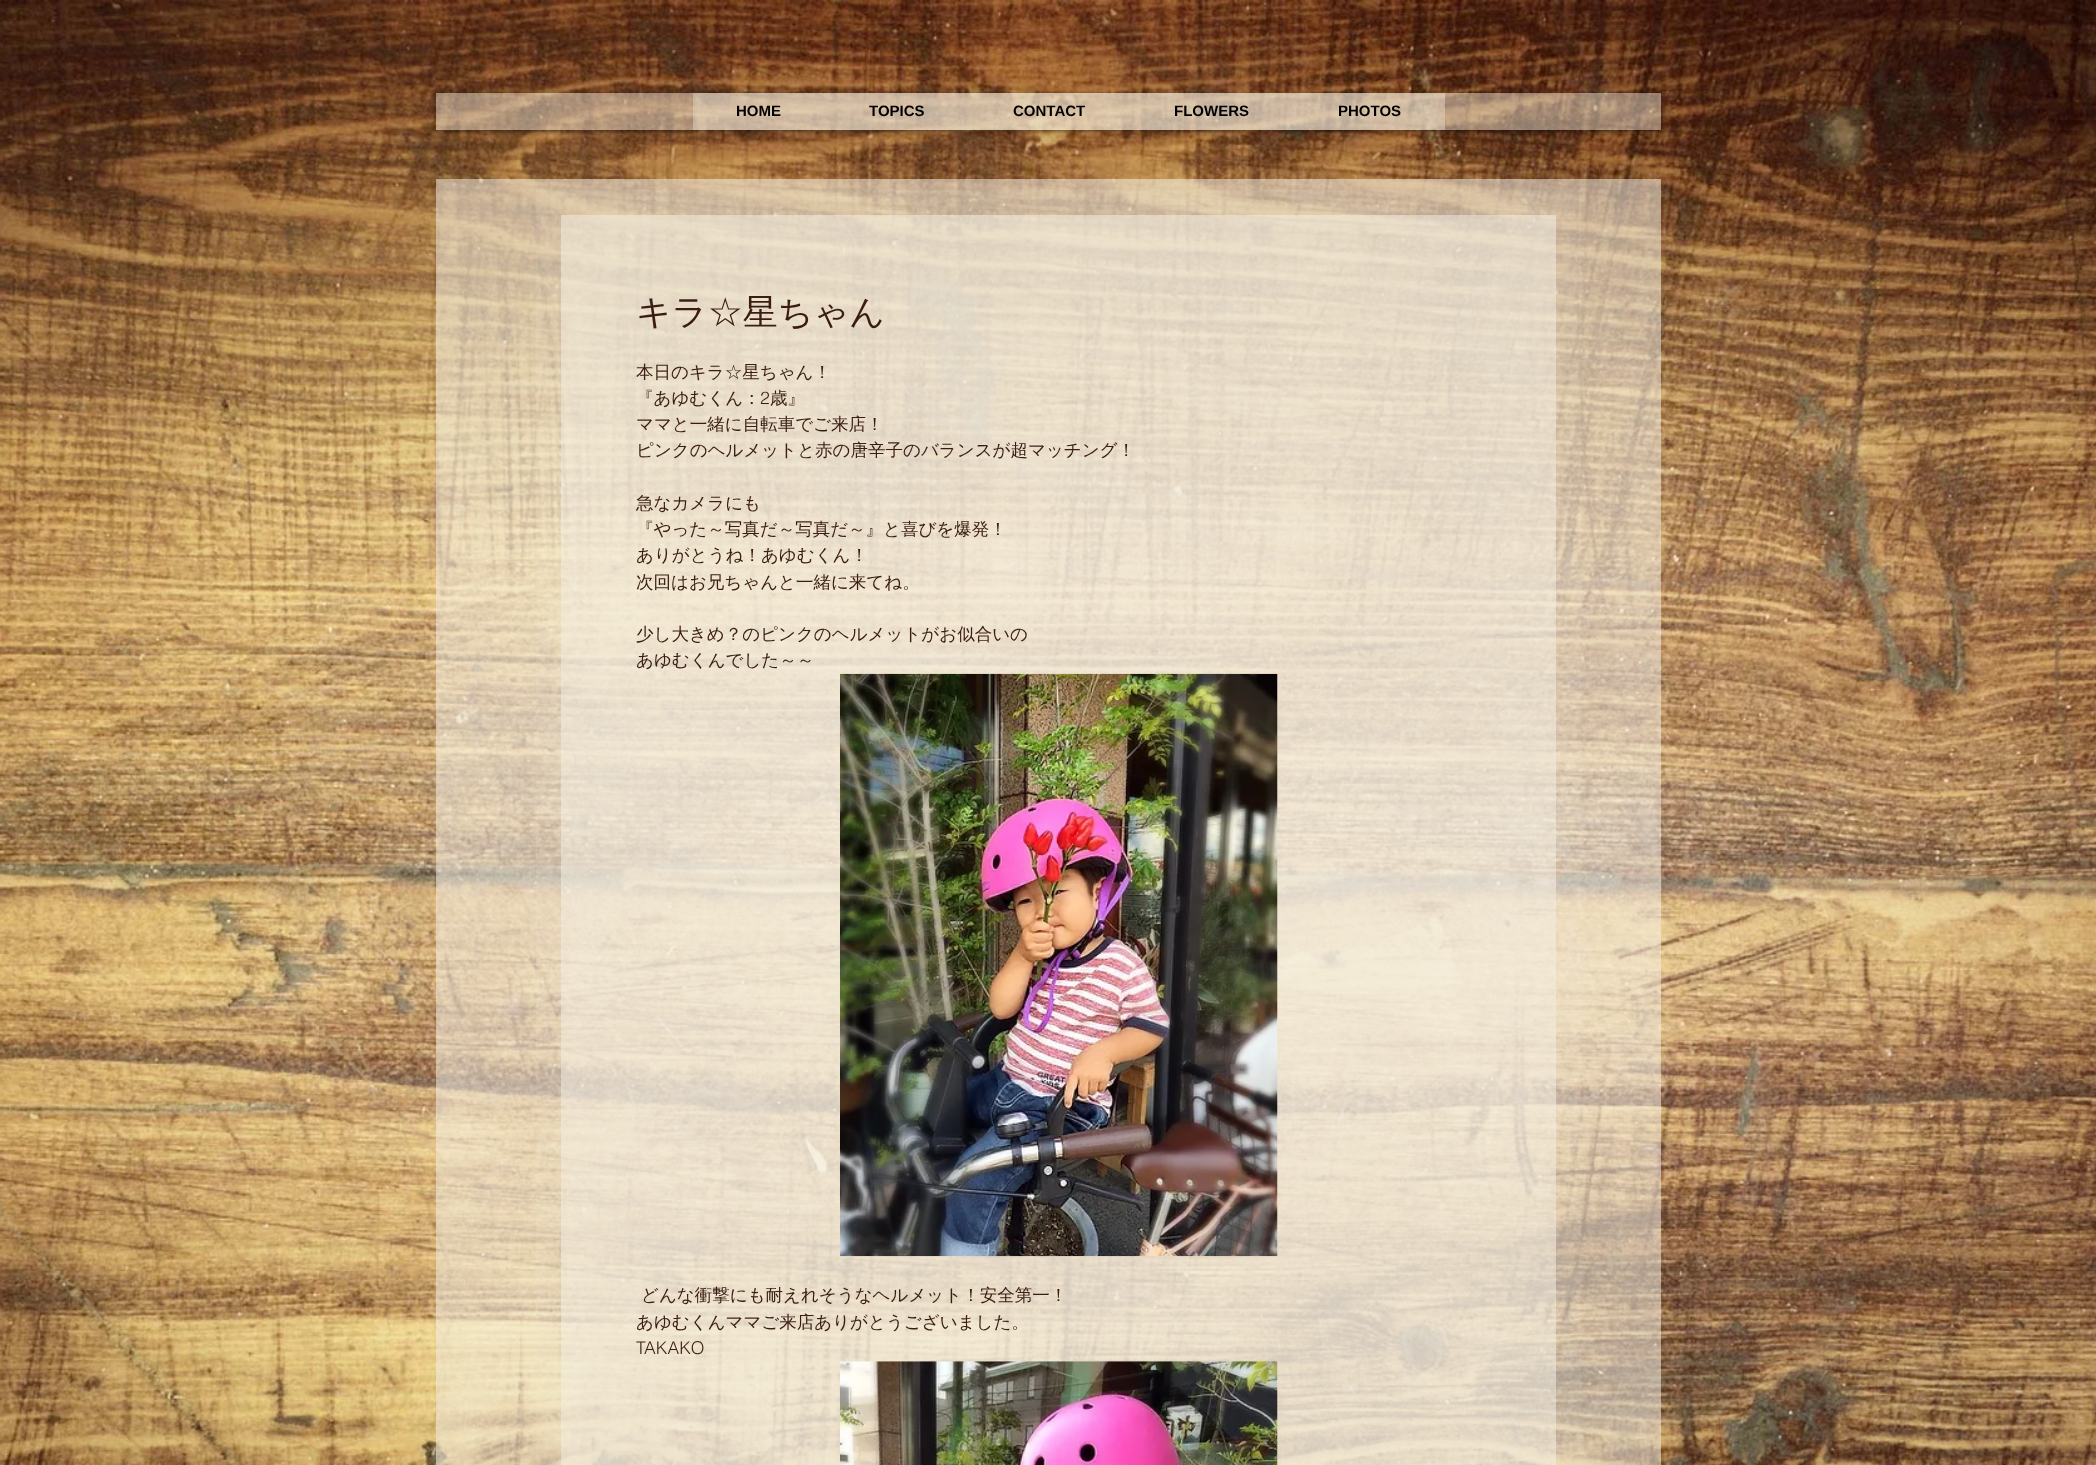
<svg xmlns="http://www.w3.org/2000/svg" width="2096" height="1465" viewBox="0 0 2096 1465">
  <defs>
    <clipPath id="clip1"><path d="M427 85H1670V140H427ZM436 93H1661V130H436Z" clip-rule="evenodd"/></clipPath>
  </defs>
  <rect width="100%" height="100%" fill="rgb(255,255,255)"/>
  <image x="0" y="0" width="2096" height="1465" href="pic1.png"/>
  <g clip-path="url(#clip1)">
    <rect x="436" y="94" width="1225" height="37" fill="rgba(0,0,0,0.6)" filter="blur(2.5px)"/>
  </g>
  <rect x="436" y="93" width="1225" height="37" fill="rgba(244,239,225,0.45)"/>
  <rect x="693" y="93" width="752" height="37" fill="rgba(247,242,226,0.36)"/>
  <g font-family="Liberation Sans" font-size="15" font-weight="bold" fill="rgb(0,0,0)">
    <text x="736" y="116">HOME</text>
    <text x="869" y="116">TOPICS</text>
    <text x="1013" y="116">CONTACT</text>
    <text x="1174" y="116">FLOWERS</text>
    <text x="1338" y="116">PHOTOS</text>
  </g>
  <rect x="436" y="179" width="1225" height="1286" fill="rgba(244,239,225,0.55)"/>
  <rect x="536" y="190" width="1045" height="1275" fill="rgba(244,239,225,0.08)"/>
  <rect x="561" y="215" width="995" height="1250" fill="rgba(244,239,225,0.54)"/>
  <text x="636" y="324" font-family="WenQuanYi Zen Hei" font-size="35" font-weight="500" fill="rgb(58,28,19)">キラ☆星ちゃん</text>
  <g font-family="WenQuanYi Zen Hei" font-size="17.5" font-weight="500" fill="rgb(58,28,19)">
    <text>
      <tspan x="636" y="378">本日のキラ☆星ちゃん！</tspan>
      <tspan x="636" y="404">『あゆむくん：</tspan>
    </text>
  </g>
  <text x="760" y="404" font-family="helvetica" font-size="17.5" font-weight="300" fill="rgb(58,28,19)">2</text>
  <g font-family="WenQuanYi Zen Hei" font-size="17.5" font-weight="500" fill="rgb(58,28,19)">
    <text x="770" y="404">歳』</text>
    <text>
      <tspan x="636" y="430">ママと一緒に自転車でご来店！</tspan>
      <tspan x="636" y="456">ピンクのヘルメットと赤の唐辛子のバランスが超マッチング！</tspan>
    </text>
    <text>
      <tspan x="636" y="509">急なカメラにも</tspan>
      <tspan x="636" y="535">『やった～写真だ～写真だ～』と喜びを爆発！</tspan>
      <tspan x="636" y="561">ありがとうね！あゆむくん！</tspan>
      <tspan x="636" y="588">次回はお兄ちゃんと一緒に来てね。</tspan>
    </text>
    <text>
      <tspan x="636" y="640">少し大きめ？のピンクのヘルメットがお似合いの</tspan>
      <tspan x="636" y="666">あゆむくんでした～～</tspan>
    </text>
  </g>
  <image x="840" y="673" width="438" height="584" href="pic2.png"/>
  <g font-family="WenQuanYi Zen Hei" font-size="17.5" font-weight="500" fill="rgb(58,28,19)">
    <text x="641" y="1301">どんな衝撃にも耐えれそうなヘルメット！安全第一！</text>
    <text x="636" y="1328">あゆむくんママご来店ありがとうございました。</text>
  </g>
  <text x="636" y="1354" font-family="helvetica" font-size="17.5" font-weight="300" fill="rgb(58,28,19)">TAKAKO</text>
  <image x="840" y="1361" width="438" height="104" href="pic3.png"/>
</svg>
